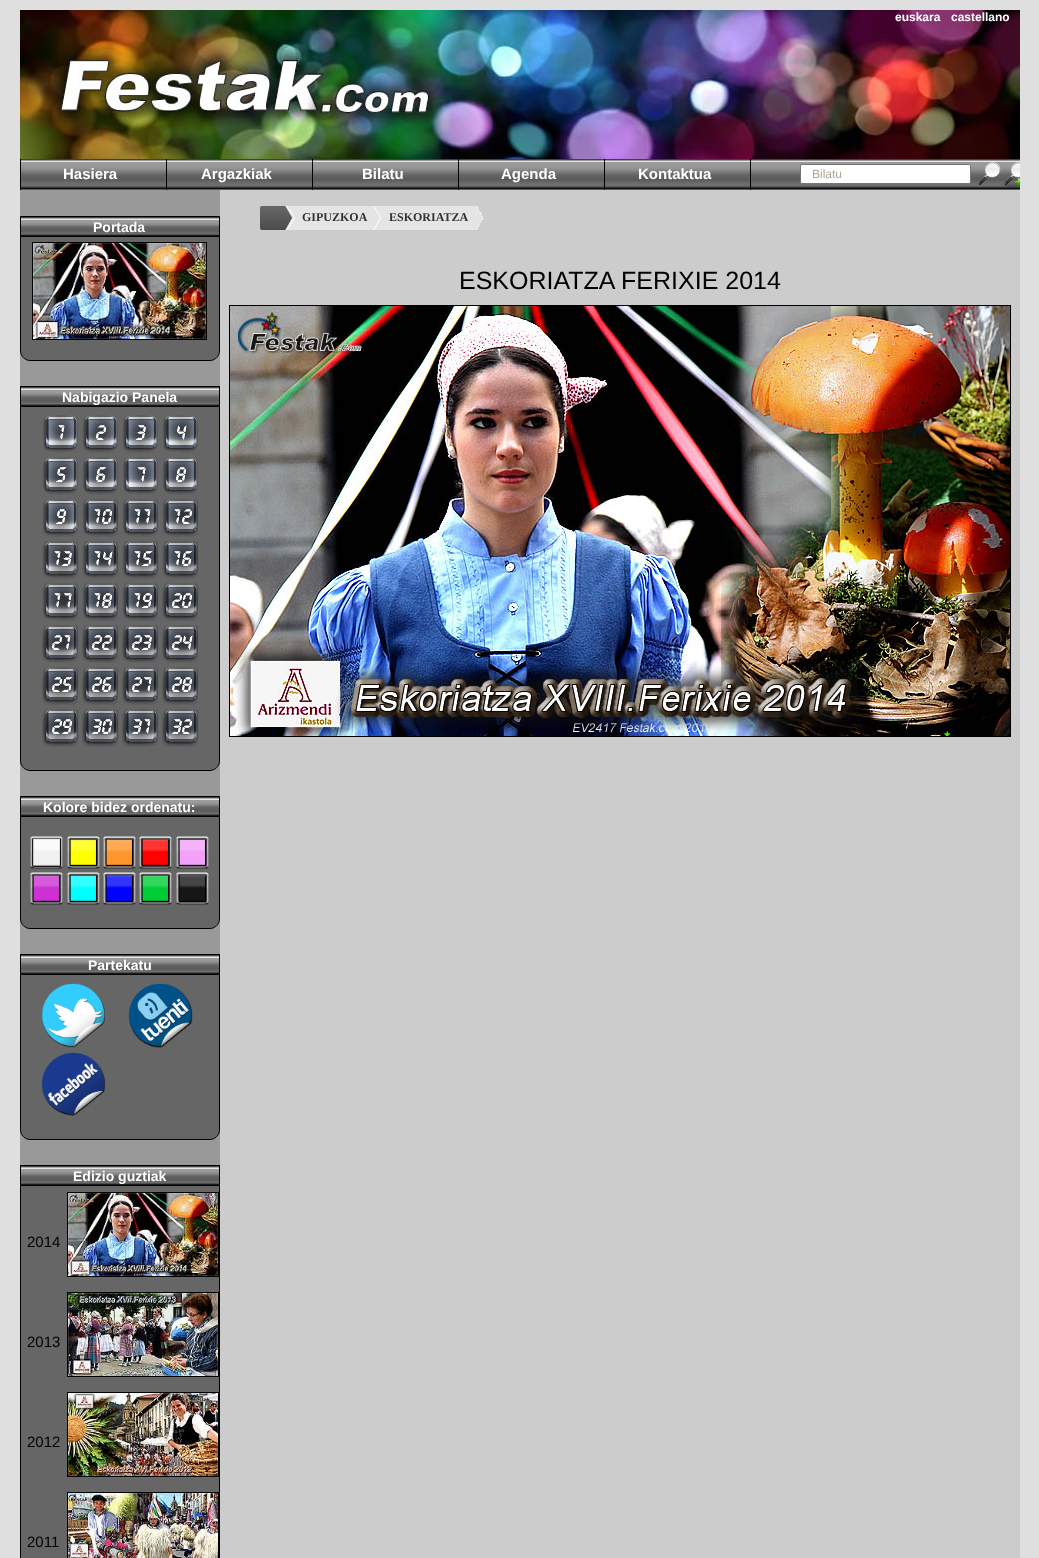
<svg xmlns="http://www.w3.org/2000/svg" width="1039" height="1558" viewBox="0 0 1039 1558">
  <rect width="100%" height="100%" fill="rgb(223,223,223)"/>
  <rect x="20" y="190" width="200" height="975" fill="rgb(153,153,153)"/>
  <image x="20" y="10" width="1000" height="149" href="pic1.png"/>
  <g font-family="Liberation Sans" font-size="12" font-weight="bold" fill="rgb(255,255,255)">
    <text x="895" y="21">euskara</text>
    <text x="951" y="21">castellano</text>
  </g>
  <image x="21" y="159" width="999" height="31" href="pic2.png"/>
  <rect x="166" y="159" width="1" height="31" fill="rgb(0,0,0)"/>
  <rect x="20" y="159" width="1" height="31" fill="rgb(0,0,0)"/>
  <text x="63" y="179" font-family="Liberation Sans" font-size="15" font-weight="bold" fill="rgb(255,255,255)">Hasiera</text>
  <rect x="312" y="159" width="1" height="31" fill="rgb(0,0,0)"/>
  <text x="201" y="179" font-family="Liberation Sans" font-size="15" font-weight="bold" fill="rgb(255,255,255)">Argazkiak</text>
  <rect x="458" y="159" width="1" height="31" fill="rgb(0,0,0)"/>
  <text x="362" y="179" font-family="Liberation Sans" font-size="15" font-weight="bold" fill="rgb(255,255,255)">Bilatu</text>
  <rect x="604" y="159" width="1" height="31" fill="rgb(0,0,0)"/>
  <text x="501" y="179" font-family="Liberation Sans" font-size="15" font-weight="bold" fill="rgb(255,255,255)">Agenda</text>
  <rect x="750" y="159" width="1" height="31" fill="rgb(0,0,0)"/>
  <text x="638" y="179" font-family="Liberation Sans" font-size="15" font-weight="bold" fill="rgb(255,255,255)">Kontaktua</text>
  <rect x="800.5" y="164.5" width="170" height="19" rx="1.5" fill="rgb(255,255,255)" stroke="rgb(118,118,118)"/>
  <text x="812" y="178" font-family="Liberation Sans" font-size="12" fill="rgb(174,165,146)">Bilatu</text>
  <image x="978" y="162" width="23" height="23" href="pic3.png"/>
  <image x="1003" y="162" width="17" height="25" href="pic4.png"/>
  <rect x="220" y="190" width="800" height="1368" fill="rgb(204,204,204)"/>
  <path d="M20.5 216.5H219.5V351C219.5 356 215 360.5 210 360.5H30C25 360.5 20.5 356 20.5 351Z" fill="rgb(102,102,102)" stroke="rgb(0,0,0)"/>
  <image x="21" y="217" width="198" height="20" href="pic5.png"/>
  <text x="93" y="232" font-family="Liberation Sans" font-size="14" font-weight="bold" fill="rgb(255,255,255)">Portada</text>
  <rect x="32.5" y="242.5" width="174" height="97" fill="none" stroke="rgb(0,0,0)"/>
  <image x="33" y="243" width="173" height="96" href="pic6.png"/>
  <path d="M20.5 386.5H219.5V761C219.5 766 215 770.5 210 770.5H30C25 770.5 20.5 766 20.5 761Z" fill="rgb(102,102,102)" stroke="rgb(0,0,0)"/>
  <image x="21" y="387" width="198" height="20" href="pic5.png"/>
  <text x="62" y="402" font-family="Liberation Sans" font-size="14" font-weight="bold" fill="rgb(255,255,255)">Nabigazio Panela</text>
  <image x="43" y="415" width="35" height="38" href="pic7.png"/>
  <image x="82" y="415" width="36" height="38" href="pic8.png"/>
  <image x="122" y="415" width="36" height="38" href="pic9.png"/>
  <image x="162" y="415" width="36" height="38" href="pic10.png"/>
  <image x="42" y="457" width="36" height="38" href="pic11.png"/>
  <image x="82" y="457" width="36" height="38" href="pic12.png"/>
  <image x="123" y="457" width="35" height="38" href="pic13.png"/>
  <image x="162" y="457" width="36" height="38" href="pic14.png"/>
  <image x="42" y="499" width="36" height="38" href="pic15.png"/>
  <image x="82" y="499" width="36" height="38" href="pic16.png"/>
  <image x="122" y="499" width="36" height="38" href="pic17.png"/>
  <image x="162" y="499" width="36" height="38" href="pic18.png"/>
  <image x="42" y="541" width="36" height="38" href="pic19.png"/>
  <image x="82" y="541" width="36" height="38" href="pic20.png"/>
  <image x="122" y="541" width="36" height="38" href="pic21.png"/>
  <image x="162" y="541" width="36" height="38" href="pic22.png"/>
  <image x="42" y="583" width="36" height="38" href="pic23.png"/>
  <image x="82" y="583" width="36" height="38" href="pic24.png"/>
  <image x="122" y="583" width="36" height="38" href="pic25.png"/>
  <image x="162" y="583" width="36" height="38" href="pic26.png"/>
  <image x="42" y="625" width="36" height="38" href="pic27.png"/>
  <image x="82" y="625" width="36" height="38" href="pic28.png"/>
  <image x="122" y="625" width="36" height="38" href="pic29.png"/>
  <image x="162" y="625" width="36" height="38" href="pic30.png"/>
  <image x="42" y="667" width="36" height="38" href="pic31.png"/>
  <image x="82" y="667" width="36" height="38" href="pic32.png"/>
  <image x="122" y="667" width="36" height="38" href="pic33.png"/>
  <image x="162" y="667" width="36" height="38" href="pic34.png"/>
  <image x="42" y="709" width="36" height="38" href="pic35.png"/>
  <image x="82" y="709" width="36" height="38" href="pic36.png"/>
  <image x="122" y="709" width="36" height="38" href="pic37.png"/>
  <image x="162" y="709" width="36" height="38" href="pic38.png"/>
  <path d="M20.5 796.5H219.5V919C219.5 924 215 928.5 210 928.5H30C25 928.5 20.5 924 20.5 919Z" fill="rgb(102,102,102)" stroke="rgb(0,0,0)"/>
  <image x="21" y="797" width="198" height="20" href="pic5.png"/>
  <text x="43" y="812" font-family="Liberation Sans" font-size="14" font-weight="bold" fill="rgb(255,255,255)">Kolore bidez ordenatu:</text>
  <image x="30" y="836" width="33" height="33" href="pic39.png"/>
  <image x="67" y="836" width="33" height="33" href="pic40.png"/>
  <image x="103" y="836" width="33" height="33" href="pic41.png"/>
  <image x="139" y="836" width="33" height="33" href="pic42.png"/>
  <image x="176" y="836" width="33" height="33" href="pic43.png"/>
  <image x="30" y="872" width="33" height="33" href="pic44.png"/>
  <image x="67" y="872" width="33" height="33" href="pic45.png"/>
  <image x="103" y="872" width="33" height="33" href="pic46.png"/>
  <image x="139" y="872" width="33" height="33" href="pic47.png"/>
  <image x="176" y="872" width="33" height="33" href="pic48.png"/>
  <path d="M20.5 954.5H219.5V1130C219.5 1135 215 1139.5 210 1139.5H30C25 1139.5 20.5 1135 20.5 1130Z" fill="rgb(102,102,102)" stroke="rgb(0,0,0)"/>
  <image x="21" y="955" width="198" height="20" href="pic5.png"/>
  <text x="88" y="970" font-family="Liberation Sans" font-size="14" font-weight="bold" fill="rgb(255,255,255)">Partekatu</text>
  <image x="41" y="983" width="64" height="65" href="pic49.png"/>
  <image x="128" y="983" width="65" height="65" href="pic50.png"/>
  <image x="41" y="1052" width="65" height="64" href="pic51.png"/>
  <rect x="21" y="1186" width="198" height="372" fill="rgb(102,102,102)"/>
  <rect x="20.5" y="1165.5" width="199" height="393" fill="none" stroke="rgb(0,0,0)"/>
  <image x="21" y="1166" width="198" height="20" href="pic5.png"/>
  <text x="73" y="1181" font-family="Liberation Sans" font-size="14" font-weight="bold" fill="rgb(255,255,255)">Edizio guztiak</text>
  <text x="27" y="1247" font-family="Liberation Sans" font-size="15" fill="rgb(0,0,0)">2014</text>
  <rect x="67.5" y="1192.5" width="151" height="84" fill="none" stroke="rgb(0,0,0)"/>
  <image x="68" y="1193" width="150" height="83" href="pic52.png"/>
  <text x="27" y="1347" font-family="Liberation Sans" font-size="15" fill="rgb(0,0,0)">2013</text>
  <rect x="67.5" y="1292.5" width="151" height="84" fill="none" stroke="rgb(0,0,0)"/>
  <image x="68" y="1293" width="150" height="83" href="pic53.png"/>
  <text x="27" y="1447" font-family="Liberation Sans" font-size="15" fill="rgb(0,0,0)">2012</text>
  <rect x="67.5" y="1392.5" width="151" height="84" fill="none" stroke="rgb(0,0,0)"/>
  <image x="68" y="1393" width="150" height="83" href="pic54.png"/>
  <text x="27" y="1547" font-family="Liberation Sans" font-size="15" fill="rgb(0,0,0)">2011</text>
  <rect x="67.5" y="1492.5" width="151" height="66" fill="none" stroke="rgb(0,0,0)"/>
  <image x="68" y="1493" width="150" height="65" href="pic55.png"/>
  <image x="474" y="206" width="9" height="24" href="pic56.png"/>
  <image x="286" y="206" width="9" height="24" href="pic58.png"/>
  <image x="260" y="206" width="32" height="24" href="pic57.png"/>
  <rect x="295" y="206" width="78" height="24" fill="rgb(229,229,229)"/>
  <text x="302" y="221" font-family="Liberation Serif" font-size="12" font-weight="bold" fill="rgb(51,51,51)">GIPUZKOA</text>
  <rect x="381" y="206" width="93" height="24" fill="rgb(229,229,229)"/>
  <image x="373" y="206" width="8" height="24" href="pic59.png"/>
  <text x="389" y="221" font-family="Liberation Serif" font-size="12" font-weight="bold" fill="rgb(51,51,51)">ESKORIATZA</text>
  <text x="459" y="289" font-family="Liberation Sans" font-size="25" fill="rgb(0,0,0)">ESKORIATZA FERIXIE 2014</text>
  <rect x="229.5" y="305.5" width="781" height="431" fill="none" stroke="rgb(0,0,0)"/>
  <image x="230" y="306" width="780" height="430" href="pic60.png"/>
</svg>
